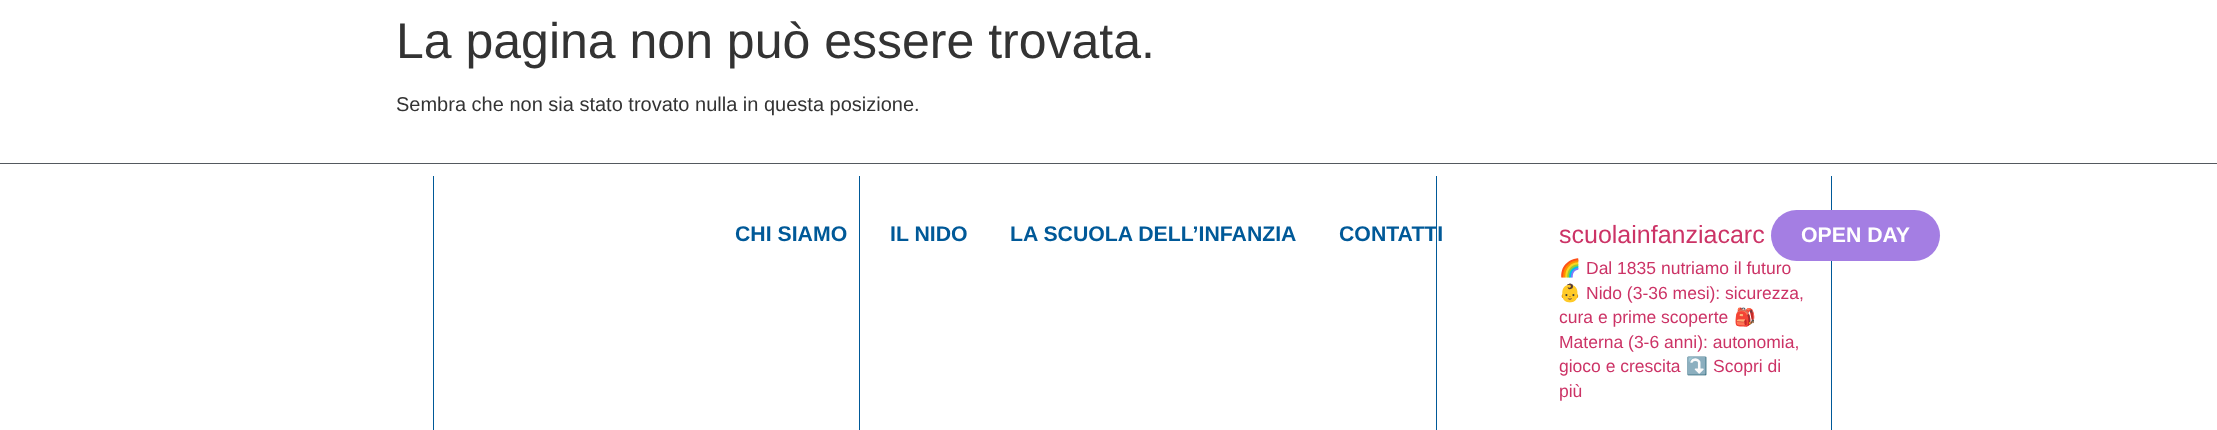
<svg xmlns="http://www.w3.org/2000/svg" width="2217" height="430" viewBox="0 0 2217 430">
  <rect width="100%" height="100%" fill="rgb(255,255,255)"/>
  <text x="396" y="58" font-family="Liberation Sans" font-size="50" fill="rgb(51,51,51)">La pagina non può essere trovata.</text>
  <text x="396" y="111" font-family="Liberation Sans" font-size="20" fill="rgb(51,51,51)">Sembra che non sia stato trovato nulla in questa posizione.</text>
  <rect x="0" y="163" width="2217" height="1" fill="rgb(84,89,95)"/>
  <rect x="433" y="176" width="1" height="254" fill="rgb(0,89,152)"/>
  <rect x="859" y="176" width="1" height="254" fill="rgb(0,89,152)"/>
  <rect x="1436" y="176" width="1" height="254" fill="rgb(0,89,152)"/>
  <text x="1559" y="243" font-family="Liberation Sans" font-size="25" fill="rgb(204,51,102)">scuolainfanziacarc</text>
  <text x="1559" y="274" font-family="Noto Color Emoji" font-size="17.5" fill="rgb(204,51,102)">🌈</text>
  <text x="1586" y="274" font-family="Liberation Sans" font-size="17.5" fill="rgb(204,51,102)">Dal 1835 nutriamo il futuro</text>
  <text x="1559" y="299" font-family="Noto Color Emoji" font-size="17.5" fill="rgb(204,51,102)">👶</text>
  <g font-family="Liberation Sans" font-size="17.5" fill="rgb(204,51,102)">
    <text x="1586" y="299">Nido (3-36 mesi): sicurezza,</text>
    <text x="1559" y="323">cura e prime scoperte</text>
  </g>
  <text x="1734" y="323" font-family="Noto Color Emoji" font-size="17.5" fill="rgb(204,51,102)">🎒</text>
  <g font-family="Liberation Sans" font-size="17.5" fill="rgb(204,51,102)">
    <text>
      <tspan x="1559" y="348">Materna (3-6 anni): autonomia,</tspan>
      <tspan x="1559" y="372">gioco e crescita</tspan>
    </text>
  </g>
  <text x="1686" y="372" font-family="Noto Color Emoji" font-size="17.5" fill="rgb(204,51,102)">⤵️</text>
  <g font-family="Liberation Sans" font-size="17.5" fill="rgb(204,51,102)">
    <text x="1713" y="372">Scopri di</text>
    <text x="1559" y="397">più</text>
  </g>
  <rect x="1831" y="176" width="1" height="254" fill="rgb(0,89,152)"/>
  <g font-family="Liberation Sans" font-size="21.25" font-weight="bold" fill="rgb(0,89,152)">
    <text x="735" y="241">CHI SIAMO</text>
    <text x="890" y="241">IL NIDO</text>
    <text x="1010" y="241">LA SCUOLA DELL’INFANZIA</text>
    <text x="1339" y="241">CONTATTI</text>
  </g>
  <rect x="1771" y="210" width="169" height="51" rx="25.5" fill="rgb(164,126,227)"/>
  <text x="1801" y="242" font-family="Liberation Sans" font-size="21.25" font-weight="bold" fill="rgb(255,255,255)">OPEN DAY</text>
</svg>
